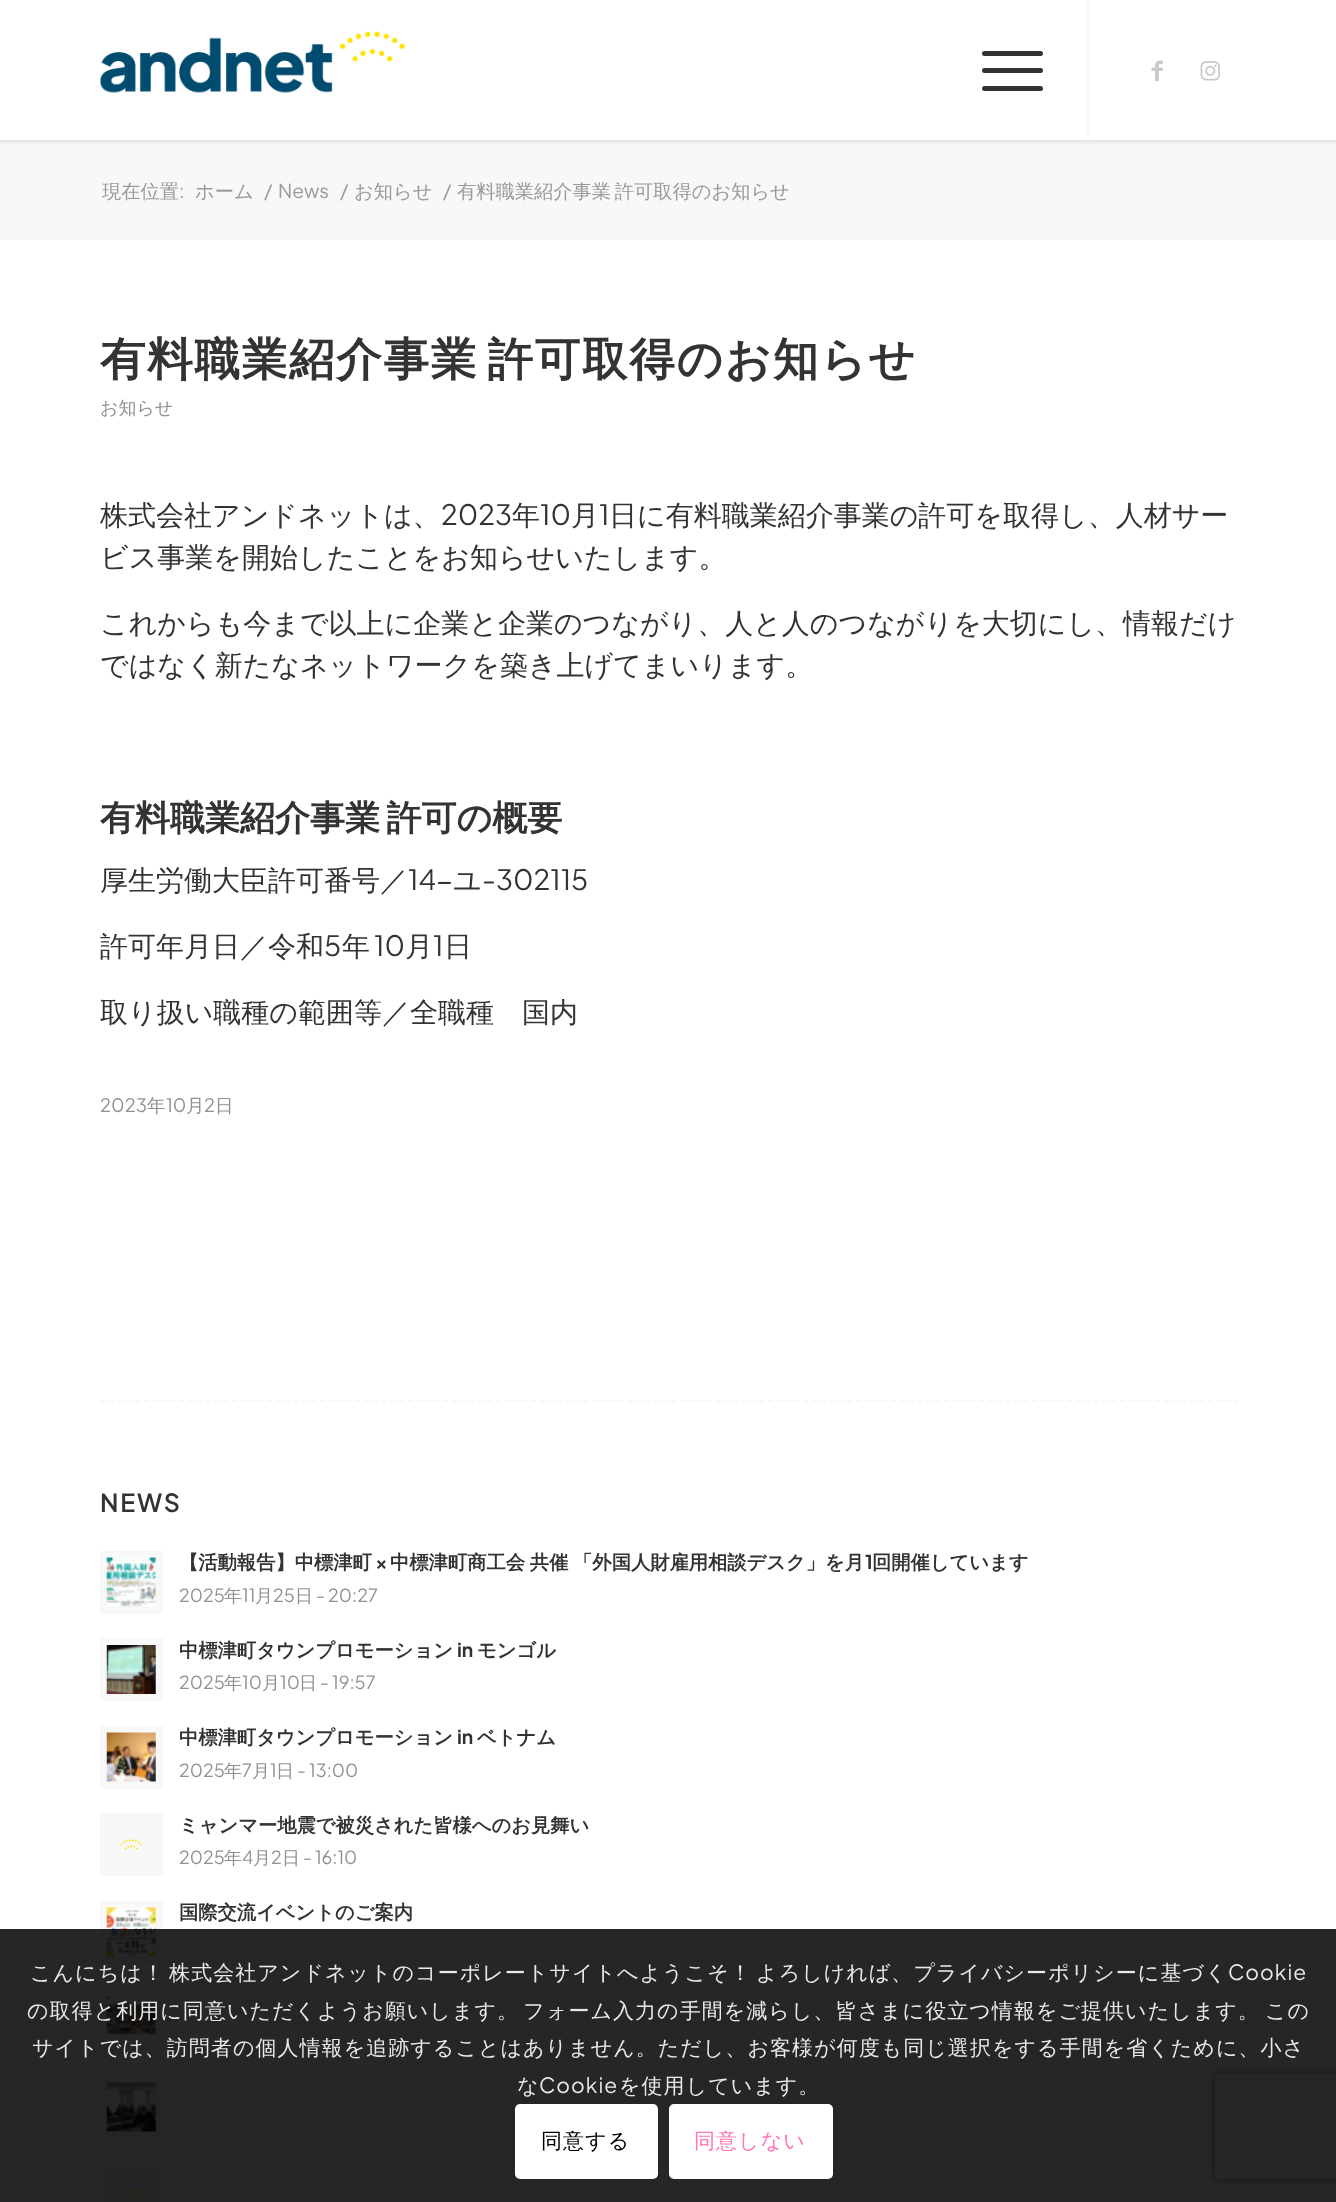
<svg xmlns="http://www.w3.org/2000/svg" width="1336" height="2202" viewBox="0 0 1336 2202">
  <defs>
    <clipPath id="clip1"><rect x="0" y="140" width="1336" height="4"/></clipPath>
    <clipPath id="clip2"><path d="M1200 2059H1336V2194H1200ZM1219 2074H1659C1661 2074 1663 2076 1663 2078V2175C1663 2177 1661 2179 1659 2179H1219C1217 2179 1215 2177 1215 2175V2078C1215 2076 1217 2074 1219 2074Z" clip-rule="evenodd"/></clipPath>
  </defs>
  <rect width="100%" height="100%" fill="rgb(255,255,255)"/>
  <rect x="0" y="140" width="1336" height="100" fill="rgb(248,248,248)"/>
  <g clip-path="url(#clip1)">
    <rect x="-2" y="-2" width="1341" height="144" fill="rgba(0,0,0,0.1)" filter="blur(2px)"/>
  </g>
  <image x="100" y="31" width="306" height="62" href="pic1.png"/>
  <rect x="1087" y="0" width="2" height="140" fill="rgb(248,248,248)"/>
  <rect x="982" y="68" width="61" height="5" rx="2.5" fill="rgb(51,51,51)"/>
  <rect x="982" y="51" width="61" height="5" rx="2.5" fill="rgb(51,51,51)"/>
  <rect x="982" y="86" width="61" height="5" rx="2.5" fill="rgb(51,51,51)"/>
  <image x="1151" y="60" width="12" height="21" href="pic2.png"/>
  <image x="1200" y="61" width="20" height="20" href="pic3.png"/>
  <text x="102" y="198" font-family="WenQuanYi Zen Hei" font-size="19.25" font-weight="500" fill="rgb(153,153,153)">現在位置</text>
  <text x="179" y="198" font-family="Plus Jakarta Sans" font-size="19.25" fill="rgb(153,153,153)">:</text>
  <text x="195" y="198" font-family="WenQuanYi Zen Hei" font-size="19.25" font-weight="500" fill="rgb(153,153,153)">ホーム</text>
  <g font-family="Plus Jakarta Sans" font-size="19.25" fill="rgb(153,153,153)">
    <text x="264" y="198">/</text>
    <text x="278" y="198">News</text>
    <text x="340" y="198">/</text>
  </g>
  <text x="354" y="198" font-family="WenQuanYi Zen Hei" font-size="19.25" font-weight="500" fill="rgb(153,153,153)">お知らせ</text>
  <text x="443" y="198" font-family="Plus Jakarta Sans" font-size="19.25" fill="rgb(153,153,153)">/</text>
  <text x="457" y="198" word-spacing="-2" font-family="WenQuanYi Zen Hei" font-size="19.25" font-weight="500" fill="rgb(153,153,153)">有料職業紹介事業 許可取得のお知らせ</text>
  <text x="100" y="375" word-spacing="-6" font-family="WenQuanYi Zen Hei" font-size="45.5" font-weight="bold" letter-spacing="1.75" fill="rgb(51,51,51)">有料職業紹介事業 許可取得のお知らせ</text>
  <text x="100" y="414" font-family="WenQuanYi Zen Hei" font-size="18" font-weight="500" fill="rgb(145,145,145)">お知らせ</text>
  <text x="100" y="525" font-family="WenQuanYi Zen Hei" font-size="28" font-weight="500" fill="rgb(51,51,51)">株式会社アンドネットは、</text>
  <text x="441" y="525" font-family="Plus Jakarta Sans" font-size="28" fill="rgb(51,51,51)">2023</text>
  <text x="512" y="525" font-family="WenQuanYi Zen Hei" font-size="28" font-weight="500" fill="rgb(51,51,51)">年</text>
  <text x="540" y="525" font-family="Plus Jakarta Sans" font-size="28" fill="rgb(51,51,51)">10</text>
  <text x="571" y="525" font-family="WenQuanYi Zen Hei" font-size="28" font-weight="500" fill="rgb(51,51,51)">月</text>
  <text x="599" y="525" font-family="Plus Jakarta Sans" font-size="28" fill="rgb(51,51,51)">1</text>
  <g font-family="WenQuanYi Zen Hei" font-size="28" font-weight="500" fill="rgb(51,51,51)">
    <text x="609" y="525">日に有料職業紹介事業の許可を取得し、人材サー</text>
    <text x="100" y="567">ビス事業を開始したことをお知らせいたします。</text>
    <text>
      <tspan x="100" y="633">これからも今まで以上に企業と企業のつながり、人と人のつながりを大切にし、情報だけ</tspan>
      <tspan x="100" y="675">ではなく新たなネットワークを築き上げてまいります。</tspan>
    </text>
  </g>
  <text x="100" y="830" word-spacing="-4" font-family="WenQuanYi Zen Hei" font-size="35" font-weight="bold" fill="rgb(51,51,51)">有料職業紹介事業 許可の概要</text>
  <text x="100" y="890" font-family="WenQuanYi Zen Hei" font-size="28" font-weight="500" fill="rgb(51,51,51)">厚生労働大臣許可番号／</text>
  <text x="408" y="890" font-family="Plus Jakarta Sans" font-size="28" fill="rgb(51,51,51)">14-</text>
  <text x="453" y="890" font-family="WenQuanYi Zen Hei" font-size="28" font-weight="500" fill="rgb(51,51,51)">ユ</text>
  <text x="482" y="890" font-family="Plus Jakarta Sans" font-size="28" fill="rgb(51,51,51)">-302115</text>
  <text x="100" y="956" font-family="WenQuanYi Zen Hei" font-size="28" font-weight="500" fill="rgb(51,51,51)">許可年月日／令和</text>
  <text x="324" y="956" font-family="Plus Jakarta Sans" font-size="28" fill="rgb(51,51,51)">5</text>
  <text x="342" y="956" font-family="WenQuanYi Zen Hei" font-size="28" font-weight="500" fill="rgb(51,51,51)">年</text>
  <text x="374" y="956" font-family="Plus Jakarta Sans" font-size="28" fill="rgb(51,51,51)">10</text>
  <text x="405" y="956" font-family="WenQuanYi Zen Hei" font-size="28" font-weight="500" fill="rgb(51,51,51)">月</text>
  <text x="433" y="956" font-family="Plus Jakarta Sans" font-size="28" fill="rgb(51,51,51)">1</text>
  <g font-family="WenQuanYi Zen Hei" font-size="28" font-weight="500" fill="rgb(51,51,51)">
    <text x="444" y="956">日</text>
    <text x="100" y="1022">取り扱い職種の範囲等／全職種　国内</text>
  </g>
  <text x="100" y="1112" font-family="Plus Jakarta Sans" font-size="18.5" fill="rgb(145,145,145)">2023</text>
  <text x="147" y="1112" font-family="WenQuanYi Zen Hei" font-size="18.5" font-weight="500" fill="rgb(145,145,145)">年</text>
  <text x="166" y="1112" font-family="Plus Jakarta Sans" font-size="18.5" fill="rgb(145,145,145)">10</text>
  <text x="186" y="1112" font-family="WenQuanYi Zen Hei" font-size="18.5" font-weight="500" fill="rgb(145,145,145)">月</text>
  <text x="204" y="1112" font-family="Plus Jakarta Sans" font-size="18.5" fill="rgb(145,145,145)">2</text>
  <text x="215" y="1112" font-family="WenQuanYi Zen Hei" font-size="18.5" font-weight="500" fill="rgb(145,145,145)">日</text>
  <path d="M100 1401H1237" fill="none" stroke="rgb(248,248,248)" stroke-width="1.8" stroke-dasharray="5.25 3.54"/>
  <text x="100" y="1512" font-family="Plus Jakarta Sans" font-size="25" font-weight="600" letter-spacing="1.75" fill="rgb(51,51,51)">NEWS</text>
  <rect x="100" y="1551" width="63" height="63" fill="rgb(248,248,248)"/>
  <image x="106" y="1557" width="50" height="50" href="pic4.png"/>
  <text x="179" y="1569" font-family="WenQuanYi Zen Hei" font-size="19.3" font-weight="bold" fill="rgb(51,51,51)">【活動報告】中標津町</text>
  <text x="375" y="1569" font-family="Plus Jakarta Sans" font-size="19.3" font-weight="bold" fill="rgb(51,51,51)">×</text>
  <text x="390" y="1569" word-spacing="-1" font-family="WenQuanYi Zen Hei" font-size="19.3" font-weight="bold" fill="rgb(51,51,51)">中標津町商工会 共催 「外国人財雇用相談デスク」を月</text>
  <text x="865" y="1569" font-family="Plus Jakarta Sans" font-size="19.3" font-weight="bold" fill="rgb(51,51,51)">1</text>
  <text x="872" y="1569" font-family="WenQuanYi Zen Hei" font-size="19.3" font-weight="bold" fill="rgb(51,51,51)">回開催しています</text>
  <text x="179" y="1602" font-family="Plus Jakarta Sans" font-size="18" fill="rgb(145,145,145)">2025</text>
  <text x="224" y="1602" font-family="WenQuanYi Zen Hei" font-size="18" font-weight="500" fill="rgb(145,145,145)">年</text>
  <text x="242" y="1602" font-family="Plus Jakarta Sans" font-size="18" fill="rgb(145,145,145)">11</text>
  <text x="255" y="1602" font-family="WenQuanYi Zen Hei" font-size="18" font-weight="500" fill="rgb(145,145,145)">月</text>
  <text x="273" y="1602" font-family="Plus Jakarta Sans" font-size="18" fill="rgb(145,145,145)">25</text>
  <text x="295" y="1602" font-family="WenQuanYi Zen Hei" font-size="18" font-weight="500" fill="rgb(145,145,145)">日</text>
  <text x="316" y="1602" font-family="Plus Jakarta Sans" font-size="18" fill="rgb(145,145,145)">- 20:27</text>
  <rect x="100" y="1638" width="63" height="63" fill="rgb(248,248,248)"/>
  <image x="106" y="1645" width="50" height="49" href="pic5.png"/>
  <text x="179" y="1657" font-family="WenQuanYi Zen Hei" font-size="19.3" font-weight="bold" fill="rgb(51,51,51)">中標津町タウンプロモーション</text>
  <text x="457" y="1657" font-family="Plus Jakarta Sans" font-size="19.3" font-weight="bold" fill="rgb(51,51,51)">in</text>
  <text x="477" y="1657" font-family="WenQuanYi Zen Hei" font-size="19.3" font-weight="bold" fill="rgb(51,51,51)">モンゴル</text>
  <text x="179" y="1689" font-family="Plus Jakarta Sans" font-size="18" fill="rgb(145,145,145)">2025</text>
  <text x="224" y="1689" font-family="WenQuanYi Zen Hei" font-size="18" font-weight="500" fill="rgb(145,145,145)">年</text>
  <text x="242" y="1689" font-family="Plus Jakarta Sans" font-size="18" fill="rgb(145,145,145)">10</text>
  <text x="262" y="1689" font-family="WenQuanYi Zen Hei" font-size="18" font-weight="500" fill="rgb(145,145,145)">月</text>
  <text x="280" y="1689" font-family="Plus Jakarta Sans" font-size="18" fill="rgb(145,145,145)">10</text>
  <text x="299" y="1689" font-family="WenQuanYi Zen Hei" font-size="18" font-weight="500" fill="rgb(145,145,145)">日</text>
  <text x="320" y="1689" font-family="Plus Jakarta Sans" font-size="18" fill="rgb(145,145,145)">- 19:57</text>
  <rect x="100" y="1726" width="63" height="63" fill="rgb(248,248,248)"/>
  <image x="106" y="1732" width="50" height="50" href="pic6.png"/>
  <text x="179" y="1744" font-family="WenQuanYi Zen Hei" font-size="19.3" font-weight="bold" fill="rgb(51,51,51)">中標津町タウンプロモーション</text>
  <text x="457" y="1744" font-family="Plus Jakarta Sans" font-size="19.3" font-weight="bold" fill="rgb(51,51,51)">in</text>
  <text x="477" y="1744" font-family="WenQuanYi Zen Hei" font-size="19.3" font-weight="bold" fill="rgb(51,51,51)">ベトナム</text>
  <text x="179" y="1777" font-family="Plus Jakarta Sans" font-size="18" fill="rgb(145,145,145)">2025</text>
  <text x="224" y="1777" font-family="WenQuanYi Zen Hei" font-size="18" font-weight="500" fill="rgb(145,145,145)">年</text>
  <text x="242" y="1777" font-family="Plus Jakarta Sans" font-size="18" fill="rgb(145,145,145)">7</text>
  <text x="252" y="1777" font-family="WenQuanYi Zen Hei" font-size="18" font-weight="500" fill="rgb(145,145,145)">月</text>
  <text x="270" y="1777" font-family="Plus Jakarta Sans" font-size="18" fill="rgb(145,145,145)">1</text>
  <text x="276" y="1777" font-family="WenQuanYi Zen Hei" font-size="18" font-weight="500" fill="rgb(145,145,145)">日</text>
  <text x="297" y="1777" font-family="Plus Jakarta Sans" font-size="18" fill="rgb(145,145,145)">- 13:00</text>
  <rect x="100" y="1813" width="63" height="63" fill="rgb(248,248,248)"/>
  <image x="120" y="1839" width="23" height="11" href="pic7.png"/>
  <text x="179" y="1832" font-family="WenQuanYi Zen Hei" font-size="19.3" font-weight="bold" fill="rgb(51,51,51)">ミャンマー地震で被災された皆様へのお見舞い</text>
  <text x="179" y="1864" font-family="Plus Jakarta Sans" font-size="18" fill="rgb(145,145,145)">2025</text>
  <text x="224" y="1864" font-family="WenQuanYi Zen Hei" font-size="18" font-weight="500" fill="rgb(145,145,145)">年</text>
  <text x="242" y="1864" font-family="Plus Jakarta Sans" font-size="18" fill="rgb(145,145,145)">4</text>
  <text x="253" y="1864" font-family="WenQuanYi Zen Hei" font-size="18" font-weight="500" fill="rgb(145,145,145)">月</text>
  <text x="271" y="1864" font-family="Plus Jakarta Sans" font-size="18" fill="rgb(145,145,145)">2</text>
  <text x="282" y="1864" font-family="WenQuanYi Zen Hei" font-size="18" font-weight="500" fill="rgb(145,145,145)">日</text>
  <text x="303" y="1864" font-family="Plus Jakarta Sans" font-size="18" fill="rgb(145,145,145)">- 16:10</text>
  <rect x="100" y="1901" width="63" height="63" fill="rgb(248,248,248)"/>
  <image x="106" y="1907" width="50" height="50" href="pic8.png"/>
  <text x="179" y="1919" font-family="WenQuanYi Zen Hei" font-size="19.3" font-weight="bold" fill="rgb(51,51,51)">国際交流イベントのご案内</text>
  <rect x="100" y="1988" width="63" height="63" fill="rgb(248,248,248)"/>
  <image x="106" y="1995" width="50" height="49" href="pic9.png"/>
  <rect x="100" y="2076" width="63" height="63" fill="rgb(248,248,248)"/>
  <image x="106" y="2082" width="50" height="50" href="pic10.png"/>
  <rect x="100" y="2163" width="63" height="39" fill="rgb(248,248,248)"/>
  <image x="120" y="2189" width="23" height="11" href="pic7.png"/>
  <g clip-path="url(#clip2)">
    <rect x="1215" y="2074" width="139" height="105" rx="4" fill="rgb(128,128,128)" filter="blur(4.5px)"/>
  </g>
  <rect x="0" y="1929" width="1336" height="273" fill="rgba(0,0,0,0.85)"/>
  <text x="30" y="1980" word-spacing="-3" font-family="WenQuanYi Zen Hei" font-size="21" font-weight="500" letter-spacing="1.05" fill="rgb(233,233,233)">こんにちは！ 株式会社アンドネットのコーポレートサイトへようこそ！ よろしければ、プライバシーポリシーに基づく</text>
  <text x="1228" y="1980" font-family="Plus Jakarta Sans" font-size="21" letter-spacing="1.05" fill="rgb(233,233,233)">Cookie</text>
  <g font-family="WenQuanYi Zen Hei" font-size="21" font-weight="500" letter-spacing="1.05" fill="rgb(233,233,233)">
    <text x="27" y="2018" word-spacing="-3">の取得と利用に同意いただくようお願いします。 フォーム入力の手間を減らし、皆さまに役立つ情報をご提供いたします。</text>
    <text x="1265" y="2018">この</text>
    <text x="32" y="2055">サイトでは、訪問者の個人情報を追跡することはありません。ただし、お客様が何度も同じ選択をする手間を省くために、小さ</text>
    <text x="517" y="2093">な</text>
  </g>
  <text x="539" y="2093" font-family="Plus Jakarta Sans" font-size="21" letter-spacing="1.05" fill="rgb(233,233,233)">Cookie</text>
  <text x="619" y="2093" font-family="WenQuanYi Zen Hei" font-size="21" font-weight="500" letter-spacing="1.05" fill="rgb(233,233,233)">を使用しています。</text>
  <rect x="515" y="2104" width="143" height="75" rx="5" fill="rgb(255,255,255)"/>
  <text x="541" y="2148" font-family="WenQuanYi Zen Hei" font-size="21" font-weight="500" letter-spacing="1.05" fill="rgb(0,0,0)">同意する</text>
  <rect x="671" y="2106" width="160" height="71" rx="3" fill="rgb(255,255,255)" stroke="rgb(255,255,255)" stroke-width="4"/>
  <text x="694" y="2148" font-family="WenQuanYi Zen Hei" font-size="21" font-weight="500" letter-spacing="1.05" fill="rgb(255,117,181)">同意しない</text>
</svg>
